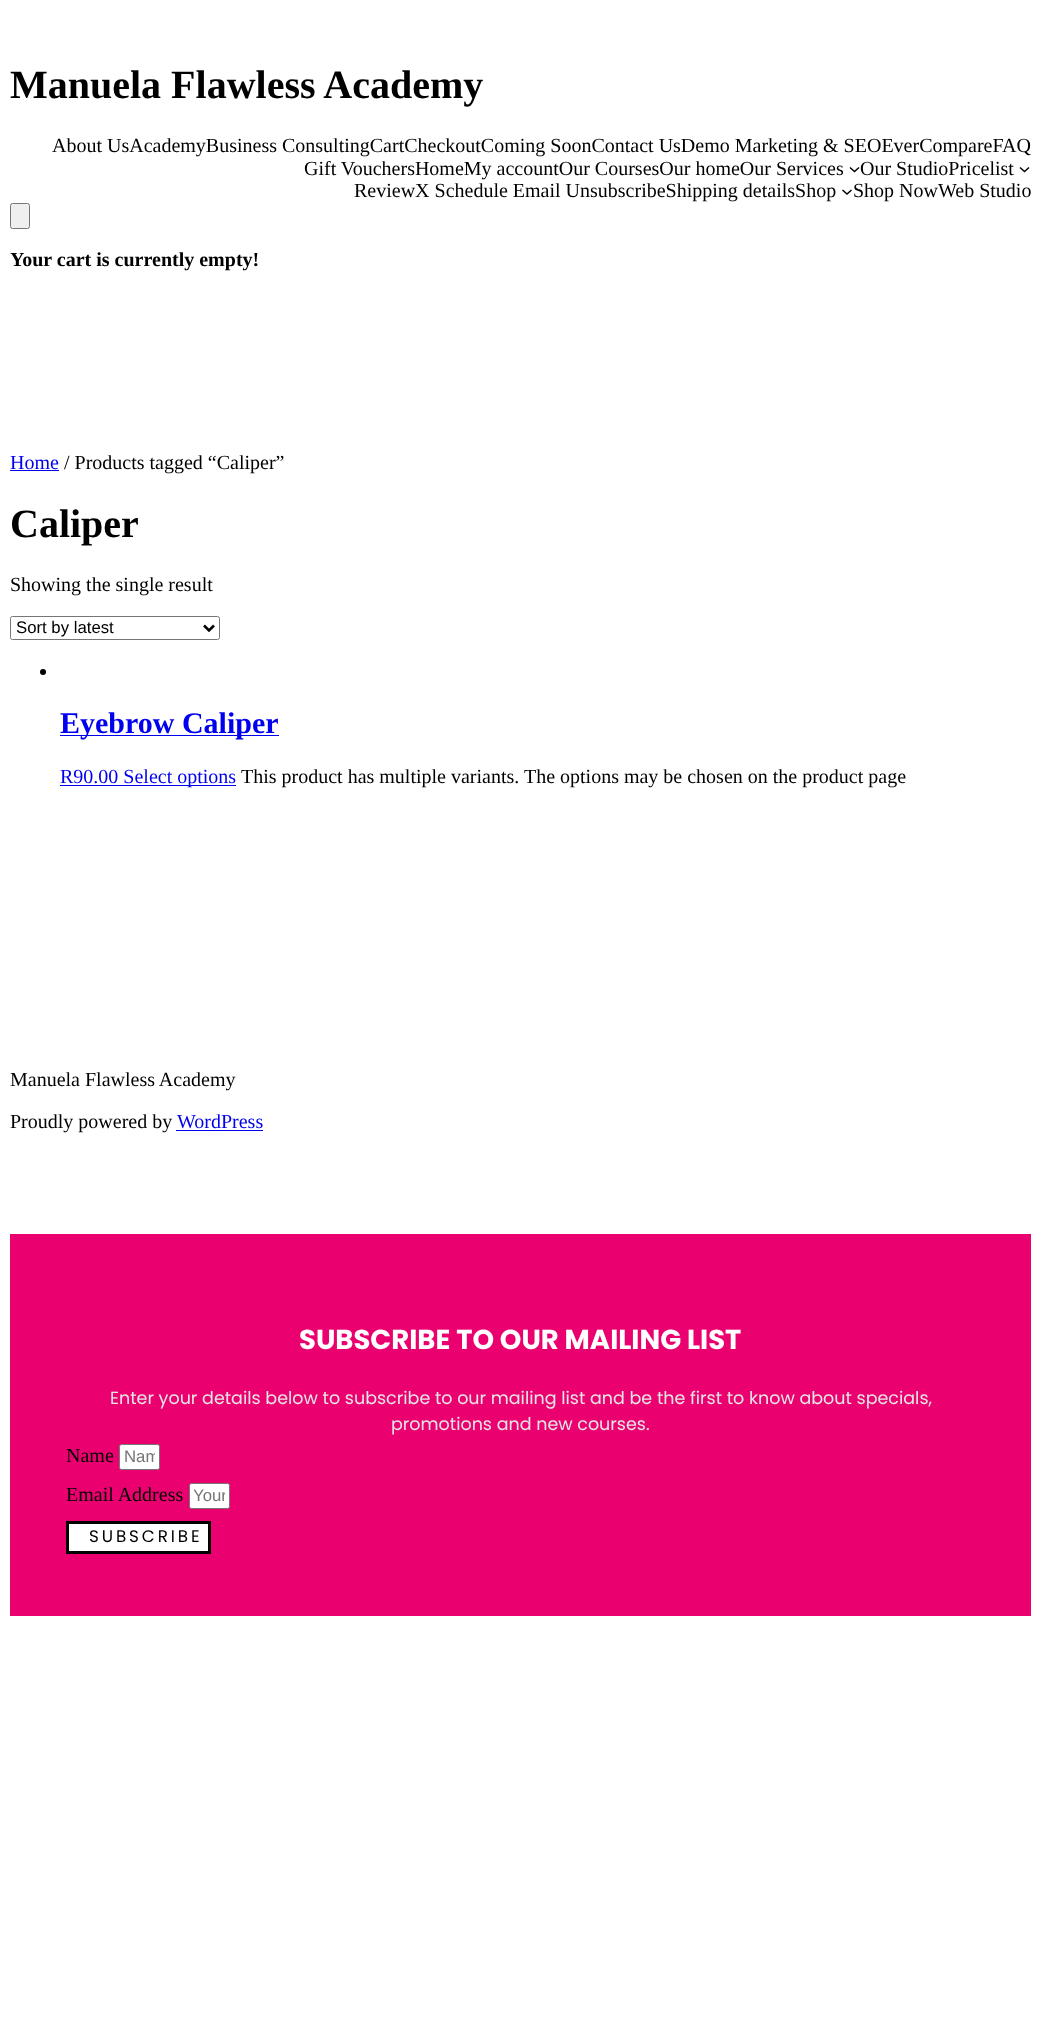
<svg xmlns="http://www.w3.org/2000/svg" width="1041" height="2038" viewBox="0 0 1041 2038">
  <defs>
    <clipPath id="clip1"><rect x="124" y="1448" width="31" height="18"/></clipPath>
    <clipPath id="clip2"><rect x="194" y="1486" width="31" height="19"/></clipPath>
  </defs>
  <rect width="100%" height="100%" fill="rgb(255,255,255)"/>
  <text x="10" y="98" font-family="Liberation Serif" font-size="40" font-weight="bold" fill="rgb(0,0,0)">Manuela Flawless Academy</text>
  <g font-family="Liberation Serif" font-size="20" fill="rgb(0,0,0)">
    <text x="52" y="152">About UsAcademyBusiness ConsultingCartCheckoutComing SoonContact UsDemo Marketing &amp; SEOEverCompareFAQ</text>
    <text x="304" y="175">Gift VouchersHomeMy accountOur CoursesOur homeOur Services</text>
  </g>
  <path d="M850 167.5L854.5 171.5L859 167.5" fill="none" stroke="rgb(0,0,0)" stroke-width="1.5"/>
  <text x="860" y="175" font-family="Liberation Serif" font-size="20" fill="rgb(0,0,0)">Our StudioPricelist</text>
  <path d="M1020 167.5L1024.5 171.5L1029 167.5" fill="none" stroke="rgb(0,0,0)" stroke-width="1.5"/>
  <text x="354" y="197" font-family="Liberation Serif" font-size="20" fill="rgb(0,0,0)">ReviewX Schedule Email UnsubscribeShipping detailsShop</text>
  <path d="M842.5 190L847 194L851.5 190" fill="none" stroke="rgb(0,0,0)" stroke-width="1.5"/>
  <text x="853" y="197" font-family="Liberation Serif" font-size="20" fill="rgb(0,0,0)">Shop NowWeb Studio</text>
  <rect x="10.5" y="203.5" width="19" height="25" rx="2" fill="rgb(239,239,239)" stroke="rgb(118,118,118)"/>
  <text x="10" y="266" font-family="Liberation Serif" font-size="20" font-weight="bold" fill="rgb(0,0,0)">Your cart is currently empty!</text>
  <text x="10" y="469" font-family="Liberation Serif" font-size="20" fill="rgb(0,0,238)">Home</text>
  <rect x="10" y="470" width="49" height="1" fill="rgb(0,0,238)"/>
  <text x="64" y="469" font-family="Liberation Serif" font-size="20" fill="rgb(0,0,0)">/ Products tagged “Caliper”</text>
  <text x="10" y="537" font-family="Liberation Serif" font-size="40" font-weight="bold" fill="rgb(0,0,0)">Caliper</text>
  <text x="10" y="591" font-family="Liberation Serif" font-size="20" fill="rgb(0,0,0)">Showing the single result</text>
  <rect x="10.5" y="616.5" width="209" height="23" rx="2" fill="none" stroke="rgb(118,118,118)"/>
  <path d="M204 625.5L209 630.5L214 625.5" fill="none" stroke="rgb(0,0,0)" stroke-width="2.5"/>
  <text x="16" y="633" font-family="Liberation Sans" font-size="16.75" fill="rgb(0,0,0)">Sort by latest</text>
  <circle cx="43" cy="672" r="3" fill="rgb(0,0,0)"/>
  <rect x="60" y="735" width="219" height="1" fill="rgb(0,0,238)"/>
  <text x="60" y="733" font-family="Liberation Serif" font-size="30" font-weight="bold" fill="rgb(0,0,238)">Eyebrow Caliper</text>
  <rect x="60" y="785" width="176" height="1" fill="rgb(0,0,238)"/>
  <text x="60" y="783" font-family="Liberation Serif" font-size="20" fill="rgb(0,0,238)">R90.00 Select options</text>
  <g font-family="Liberation Serif" font-size="20" fill="rgb(0,0,0)">
    <text x="241" y="783">This product has multiple variants. The options may be chosen on the product page</text>
    <text x="10" y="1086">Manuela Flawless Academy</text>
    <text x="10" y="1128">Proudly powered by</text>
  </g>
  <text x="177" y="1128" font-family="Liberation Serif" font-size="20" fill="rgb(0,0,238)">WordPress</text>
  <rect x="176" y="1130" width="87" height="1" fill="rgb(0,0,238)"/>
  <rect x="10" y="1234" width="1021" height="382" fill="rgb(235,0,111)"/>
  <text x="299" y="1349" font-family="Poppins" font-size="27.5" font-weight="bold" fill="rgb(255,255,255)">SUBSCRIBE TO OUR MAILING LIST</text>
  <g font-family="Poppins" font-size="17.5" fill="rgb(230,229,229)">
    <text x="110" y="1404">Enter your details below to subscribe to our mailing list and be the first to know about specials,</text>
    <text x="391" y="1430">promotions and new courses.</text>
  </g>
  <text x="66" y="1462" font-family="Liberation Serif" font-size="20" fill="rgb(0,0,0)">Name</text>
  <rect x="119.5" y="1444.5" width="40" height="25" rx="2" fill="rgb(255,255,255)" stroke="rgb(118,118,118)"/>
  <g clip-path="url(#clip1)">
    <text x="124" y="1462" font-family="Liberation Sans" font-size="16.75" fill="rgb(117,117,117)">Nam</text>
  </g>
  <text x="66" y="1501" font-family="Liberation Serif" font-size="20" fill="rgb(0,0,0)">Email Address</text>
  <rect x="189.5" y="1483.5" width="40" height="25" rx="2" fill="rgb(255,255,255)" stroke="rgb(118,118,118)"/>
  <g clip-path="url(#clip2)">
    <text x="193" y="1501" font-family="Liberation Sans" font-size="16.75" fill="rgb(117,117,117)">Your</text>
  </g>
  <rect x="67.5" y="1522.5" width="142" height="30" fill="rgb(255,255,255)" stroke="rgb(0,0,0)" stroke-width="3"/>
  <text x="89" y="1542" font-family="Poppins" font-size="16.75" letter-spacing="2.9" fill="rgb(0,0,0)">SUBSCRIBE</text>
</svg>
